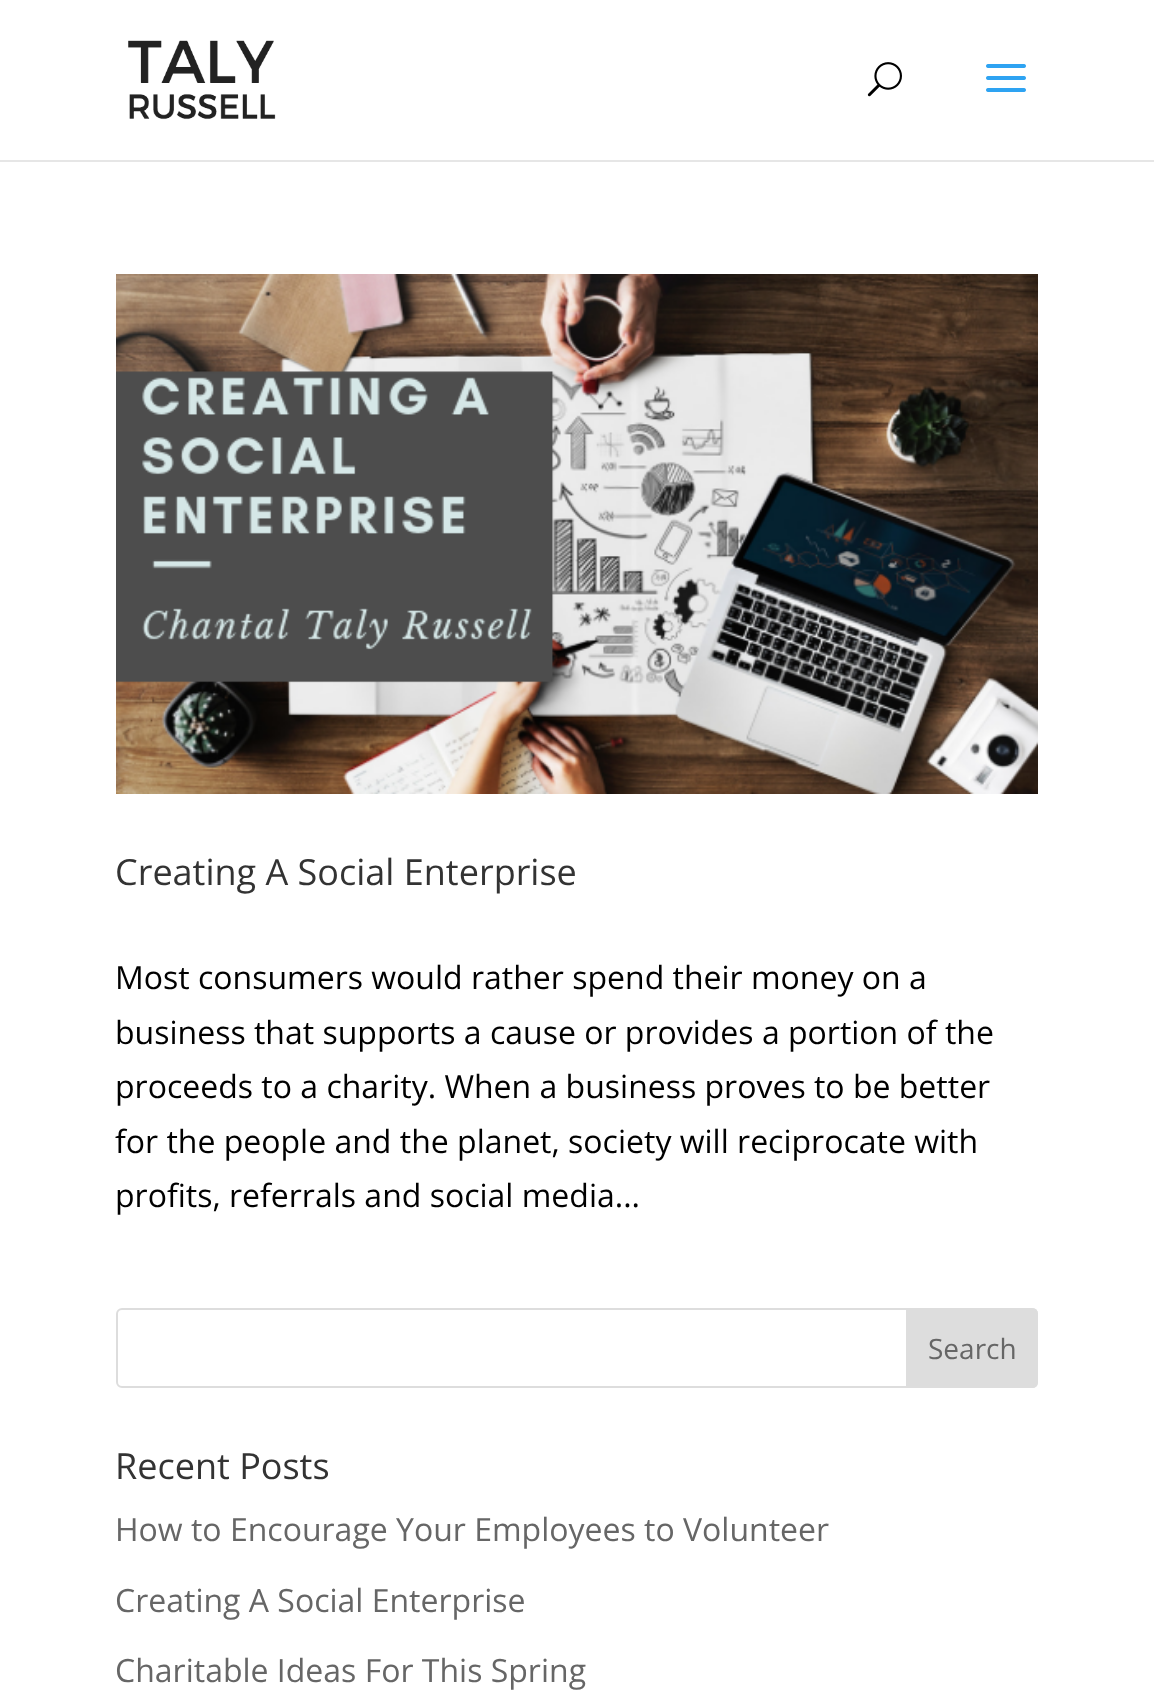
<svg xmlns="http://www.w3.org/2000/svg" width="1154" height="1705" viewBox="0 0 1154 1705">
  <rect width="100%" height="100%" fill="rgb(255,255,255)"/>
  <rect x="0" y="160" width="1154" height="2" fill="rgb(230,230,230)"/>
  <image x="128" y="40" width="148" height="80" href="pic1.png"/>
  <image x="867" y="62" width="35" height="35" href="pic2.png"/>
  <image x="986" y="64" width="40" height="28" href="pic3.png"/>
  <image x="116" y="274" width="922" height="520" href="pic4.png"/>
  <text x="115" y="885" font-family="Open Sans" font-size="36" fill="rgb(51,51,51)">Creating A Social Enterprise</text>
  <g font-family="Open Sans" font-size="32" fill="rgb(0,0,0)">
    <text>
      <tspan x="115" y="989">Most consumers would rather spend their money on a</tspan>
      <tspan x="115" y="1044">business that supports a cause or provides a portion of the</tspan>
      <tspan x="115" y="1098">proceeds to a charity. When a business proves to be better</tspan>
      <tspan x="115" y="1153">for the people and the planet, society will reciprocate with</tspan>
      <tspan x="115" y="1207">profits, referrals and social media...</tspan>
    </text>
  </g>
  <rect x="117" y="1309" width="920" height="78" rx="5" fill="none" stroke="rgb(221,221,221)" stroke-width="2"/>
  <path d="M907 1309H1032C1035 1309 1037 1311 1037 1314V1382C1037 1385 1035 1387 1032 1387H907Z" fill="rgb(221,221,221)" stroke="rgb(221,221,221)" stroke-width="2"/>
  <text x="928" y="1359" font-family="Open Sans" font-size="28" fill="rgb(102,102,102)">Search</text>
  <text x="115" y="1479" font-family="Open Sans" font-size="36" fill="rgb(51,51,51)">Recent Posts</text>
  <g font-family="Open Sans" font-size="32" fill="rgb(102,102,102)">
    <text x="115" y="1541">How to Encourage Your Employees to Volunteer</text>
    <text x="115" y="1612">Creating A Social Enterprise</text>
    <text x="115" y="1682">Charitable Ideas For This Spring</text>
  </g>
</svg>
